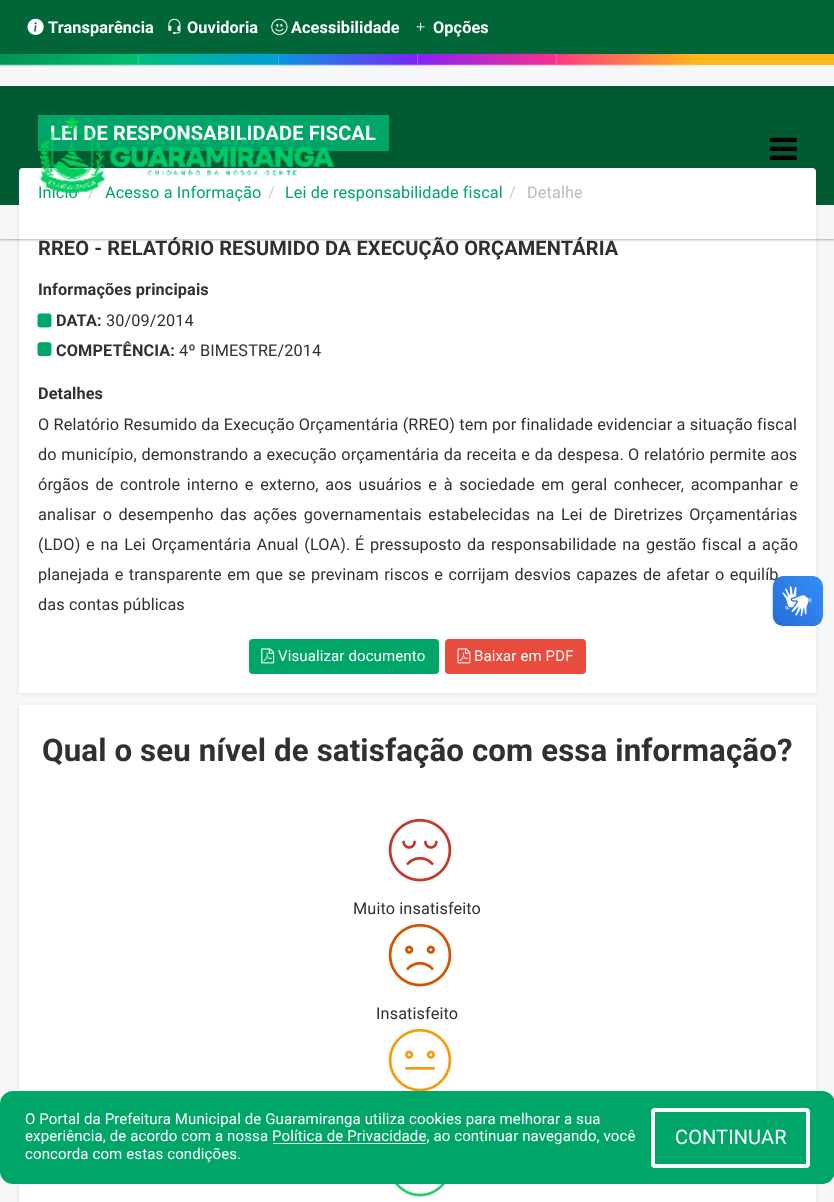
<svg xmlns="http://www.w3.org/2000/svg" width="834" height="1202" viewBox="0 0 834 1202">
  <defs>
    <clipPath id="clip1"><path d="M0 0H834V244H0ZM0 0H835V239H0Z" clip-rule="evenodd"/></clipPath>
  </defs>
  <rect width="100%" height="100%" fill="rgb(246,247,248)"/>
  <rect x="19" y="169" width="797" height="525" fill="rgba(3,0,71,0.09)" filter="blur(2px)"/>
  <rect x="0" y="86" width="834" height="119" fill="rgb(0,90,50)"/>
  <rect x="38" y="115" width="351" height="36" fill="rgb(0,166,104)"/>
  <rect x="19" y="214" width="797" height="479" fill="rgb(255,255,255)"/>
  <rect x="19" y="168" width="797" height="50" rx="4" fill="rgb(255,255,255)"/>
  <g clip-path="url(#clip1)">
    <rect x="0" y="1" width="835" height="239" fill="rgba(0,0,0,0.3)" filter="blur(1px)"/>
  </g>
  <rect x="0" y="0" width="834" height="54" fill="rgb(0,113,62)"/>
  <image x="0" y="54" width="139" height="12" href="pic5.png"/>
  <image x="138" y="53" width="141" height="13" href="pic6.png"/>
  <image x="278" y="54" width="140" height="12" href="pic7.png"/>
  <image x="417" y="53" width="140" height="13" href="pic8.png"/>
  <rect x="0" y="0" width="834" height="54" fill="rgba(0,0,0,0.1)"/>
  <image x="27" y="18" width="17" height="17" href="pic1.png"/>
  <text x="48" y="33" font-family="Roboto" font-size="16.25" font-weight="bold" letter-spacing="0.12" fill="rgb(255,255,255)">Transparência</text>
  <image x="168" y="18" width="13" height="16" href="pic2.png"/>
  <text x="187" y="33" font-family="Roboto" font-size="16.25" font-weight="bold" letter-spacing="0.12" fill="rgb(255,255,255)">Ouvidoria</text>
  <image x="271" y="18" width="17" height="17" href="pic3.png"/>
  <text x="291" y="33" font-family="Roboto" font-size="16.25" font-weight="bold" letter-spacing="0.12" fill="rgb(255,255,255)">Acessibilidade</text>
  <image x="416" y="22" width="9" height="9" href="pic4.png"/>
  <text x="433" y="33" font-family="Roboto" font-size="16.25" font-weight="bold" letter-spacing="0.12" fill="rgb(255,255,255)">Opções</text>
  <image x="556" y="54" width="141" height="12" href="pic9.png"/>
  <rect x="696" y="54" width="138" height="11" fill="rgb(255,183,25)"/>
  <text x="50" y="140" font-family="Roboto" font-size="20" font-weight="bold" letter-spacing="0.12" fill="rgb(255,255,255)">LEI DE RESPONSABILIDADE FISCAL</text>
  <text x="38" y="198" font-family="Roboto" font-size="16.25" letter-spacing="0.12" fill="rgb(0,166,104)">Início</text>
  <text x="88" y="198" font-family="Roboto" font-size="16.25" letter-spacing="0.12" fill="rgb(204,204,204)">/</text>
  <text x="105" y="198" font-family="Roboto" font-size="16.25" letter-spacing="0.12" fill="rgb(0,166,104)">Acesso a Informação</text>
  <text x="268" y="198" font-family="Roboto" font-size="16.25" letter-spacing="0.12" fill="rgb(204,204,204)">/</text>
  <text x="285" y="198" font-family="Roboto" font-size="16.25" letter-spacing="0.12" fill="rgb(0,166,104)">Lei de responsabilidade fiscal</text>
  <image x="39" y="117" width="296" height="77" href="pic10.png"/>
  <image x="770" y="137" width="27" height="23" href="pic11.png"/>
  <text x="509" y="198" font-family="Roboto" font-size="16.25" letter-spacing="0.12" fill="rgb(204,204,204)">/</text>
  <text x="527" y="198" font-family="Roboto" font-size="16.25" letter-spacing="0.12" fill="rgb(187,187,187)">Detalhe</text>
  <text x="38" y="255" font-family="Roboto" font-size="20" font-weight="bold" letter-spacing="0.12" fill="rgb(48,48,48)">RREO - RELATÓRIO RESUMIDO DA EXECUÇÃO ORÇAMENTÁRIA</text>
  <text x="38" y="295" font-family="Roboto" font-size="16.25" font-weight="bold" letter-spacing="0.12" fill="rgb(48,48,48)">Informações principais</text>
  <image x="37" y="313" width="15" height="15" href="pic12.png"/>
  <text x="56" y="326" font-family="Roboto" font-size="16.25" font-weight="bold" letter-spacing="0.12" fill="rgb(48,48,48)">DATA:</text>
  <text x="106" y="326" font-family="Roboto" font-size="16.25" letter-spacing="0.12" fill="rgb(48,48,48)">30/09/2014</text>
  <image x="37" y="342" width="15" height="15" href="pic13.png"/>
  <text x="56" y="356" font-family="Roboto" font-size="16.25" font-weight="bold" letter-spacing="0.12" fill="rgb(48,48,48)">COMPETÊNCIA:</text>
  <text x="179" y="356" font-family="Roboto" font-size="16.25" letter-spacing="0.12" fill="rgb(48,48,48)">4º BIMESTRE/2014</text>
  <text x="38" y="399" font-family="Roboto" font-size="16.25" font-weight="bold" letter-spacing="0.12" fill="rgb(48,48,48)">Detalhes</text>
  <g font-family="Roboto" font-size="16.25" letter-spacing="0.12" fill="rgb(48,48,48)">
    <text>
      <tspan x="38" y="430" word-spacing="0.1">O Relatório Resumido da Execução Orçamentária (RREO) tem por finalidade evidenciar a situação fiscal</tspan>
      <tspan x="38" y="460" word-spacing="0.5">do município, demonstrando a execução orçamentária da receita e da despesa.</tspan>
    </text>
    <text x="628" y="460" word-spacing="0.5">O relatório permite aos</text>
    <text>
      <tspan x="38" y="490" word-spacing="2.4">órgãos de controle interno e externo, aos usuários e à sociedade em geral conhecer, acompanhar e</tspan>
      <tspan x="38" y="520" word-spacing="2.25">analisar o desempenho das ações governamentais estabelecidas na Lei de Diretrizes Orçamentárias</tspan>
      <tspan x="38" y="550" word-spacing="1.5">(LDO) e na Lei Orçamentária Anual (LOA).</tspan>
    </text>
    <text x="355" y="550" word-spacing="1.5">É pressuposto da responsabilidade na gestão fiscal a ação</text>
    <text>
      <tspan x="38" y="580" word-spacing="1.25">planejada e transparente em que se previnam riscos e corrijam desvios capazes de afetar o equilíb</tspan>
      <tspan x="38" y="610">das contas públicas</tspan>
    </text>
  </g>
  <rect x="249" y="639" width="190" height="35" rx="4" fill="rgb(0,166,104)"/>
  <image x="261" y="648" width="14" height="16" href="pic14.png"/>
  <text x="278" y="661" font-family="Roboto" font-size="15" letter-spacing="0.12" fill="rgb(255,255,255)">Visualizar documento</text>
  <rect x="445" y="639" width="141" height="35" rx="4" fill="rgb(231,76,60)"/>
  <image x="457" y="648" width="14" height="16" href="pic15.png"/>
  <text x="474" y="661" font-family="Roboto" font-size="15" letter-spacing="0.12" fill="rgb(255,255,255)">Baixar em PDF</text>
  <image x="772" y="576" width="51" height="51" href="pic16.png"/>
  <image x="773" y="576" width="50" height="50" href="pic17.png"/>
  <rect x="19" y="706" width="797" height="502" fill="rgba(3,0,71,0.09)" filter="blur(2px)"/>
  <rect x="19" y="705" width="797" height="497" fill="rgb(255,255,255)"/>
  <text x="42" y="761" font-family="Roboto" font-size="31.25" font-weight="bold" letter-spacing="0.12" fill="rgb(48,48,48)">Qual o seu nível de satisfação com essa informação?</text>
  <image x="388" y="818" width="64" height="64" href="pic18.png"/>
  <text x="353" y="914" font-family="Roboto" font-size="16.25" letter-spacing="0.12" fill="rgb(48,48,48)">Muito insatisfeito</text>
  <image x="388" y="923" width="64" height="64" href="pic19.png"/>
  <text x="376" y="1019" font-family="Roboto" font-size="16.25" letter-spacing="0.12" fill="rgb(48,48,48)">Insatisfeito</text>
  <image x="388" y="1028" width="64" height="63" href="pic20.png"/>
  <image x="395" y="1184" width="50" height="13" href="pic21.png"/>
  <rect x="0" y="1091" width="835" height="93" rx="13" fill="rgb(0,166,104)"/>
  <g font-family="Roboto" font-size="15" letter-spacing="0.12" fill="rgb(255,255,255)">
    <text>
      <tspan x="25" y="1124">O Portal da Prefeitura Municipal de Guaramiranga utiliza cookies para melhorar a sua</tspan>
      <tspan x="25" y="1141">experiência, de acordo com a nossa Política de Privacidade, ao continuar navegando, você</tspan>
    </text>
  </g>
  <rect x="273" y="1143" width="153" height="1" fill="rgb(255,255,255)"/>
  <text x="25" y="1159" font-family="Roboto" font-size="15" letter-spacing="0.12" fill="rgb(255,255,255)">concorda com estas condições.</text>
  <rect x="653" y="1110" width="155" height="56" rx="2" fill="none" stroke="rgb(255,255,255)" stroke-width="4"/>
  <text x="675" y="1144" font-family="Roboto" font-size="20" letter-spacing="0.12" fill="rgb(255,255,255)">CONTINUAR</text>
</svg>
